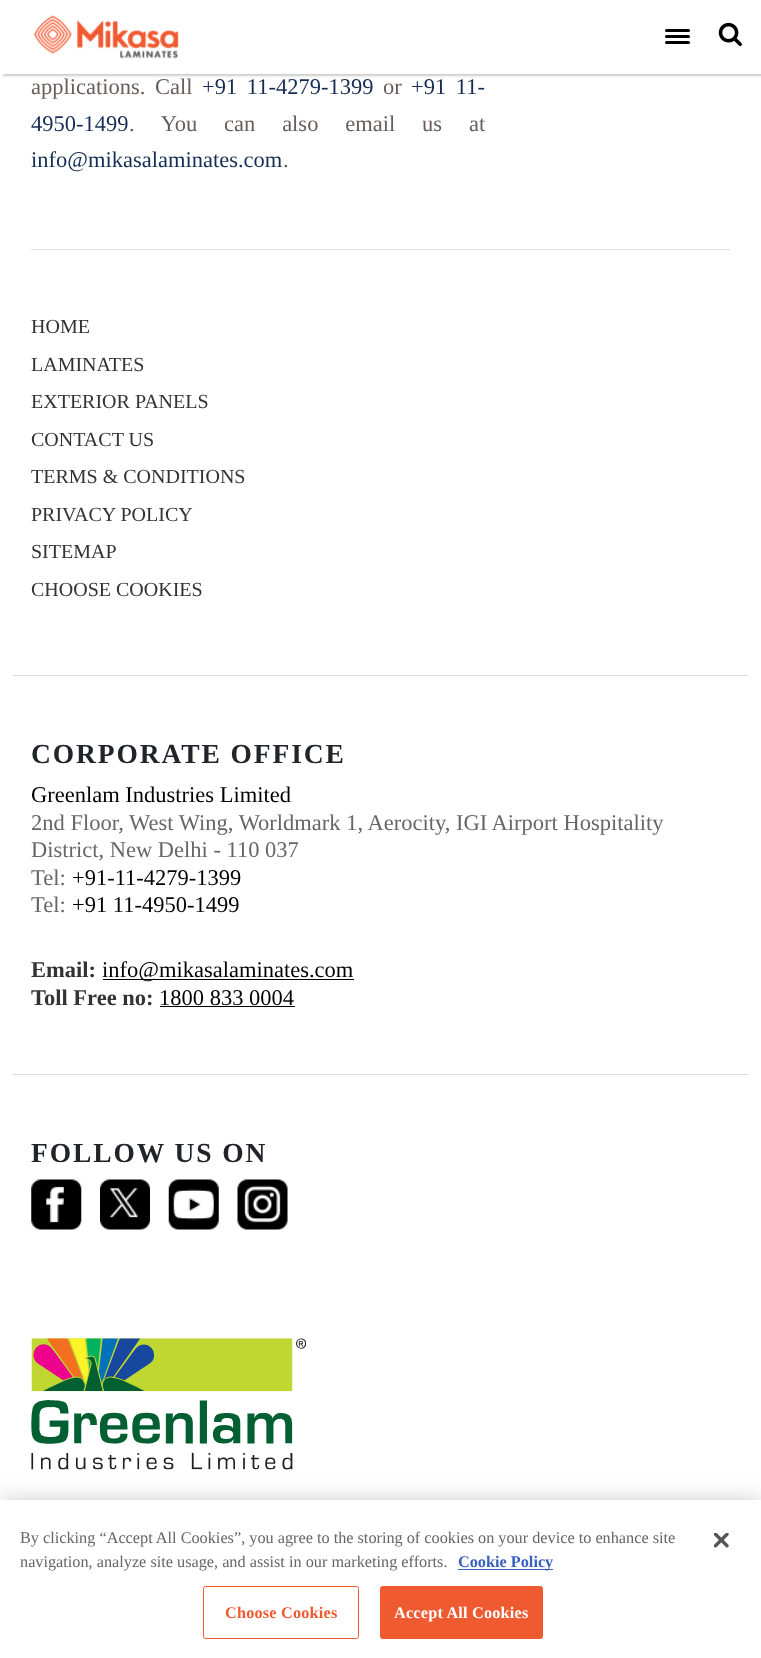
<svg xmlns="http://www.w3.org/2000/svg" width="761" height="1658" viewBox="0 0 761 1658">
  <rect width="100%" height="100%" fill="rgb(255,255,255)"/>
  <rect x="3" y="3" width="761" height="73" fill="rgb(204,204,204)" filter="blur(1px)"/>
  <rect x="1" y="1" width="760" height="73" fill="rgb(255,255,255)"/>
  <image x="34" y="15" width="145" height="44" href="pic1.png"/>
  <rect x="665" y="29" width="25" height="3" rx="1.5" fill="rgb(0,0,0)"/>
  <rect x="665" y="35" width="25" height="3" rx="1.5" fill="rgb(0,0,0)"/>
  <rect x="665" y="41" width="25" height="3" rx="1.5" fill="rgb(0,0,0)"/>
  <image x="718" y="22" width="24" height="25" href="pic2.png"/>
  <text x="31" y="94" word-spacing="4" font-family="Liberation Serif" font-size="22.5" fill="rgb(103,92,92)">applications. Call</text>
  <text x="202" y="94" word-spacing="4" font-family="Liberation Serif" font-size="22.5" fill="rgb(21,44,85)">+91 11-4279-1399</text>
  <text x="383" y="94" font-family="Liberation Serif" font-size="22.5" fill="rgb(103,92,92)">or</text>
  <g font-family="Liberation Serif" font-size="22.5" fill="rgb(21,44,85)">
    <text x="411" y="94" word-spacing="4">+91 11-</text>
    <text x="31" y="131">4950-1499</text>
  </g>
  <text x="129" y="131" word-spacing="21.25" font-family="Liberation Serif" font-size="22.5" fill="rgb(103,92,92)">. You can also email us at</text>
  <text x="31" y="167" font-family="Liberation Serif" font-size="22.5" fill="rgb(21,44,85)">info@mikasalaminates.com</text>
  <text x="283" y="167" font-family="Liberation Serif" font-size="22.5" fill="rgb(103,92,92)">.</text>
  <rect x="31" y="249" width="699" height="1" fill="rgb(221,221,221)"/>
  <rect x="13" y="675" width="736" height="1" fill="rgb(221,221,221)"/>
  <g font-family="Liberation Serif" font-size="20" fill="rgb(51,51,51)">
    <text>
      <tspan x="31" y="333">HOME</tspan>
      <tspan x="31" y="371">LAMINATES</tspan>
      <tspan x="31" y="408">EXTERIOR PANELS</tspan>
      <tspan x="31" y="446">CONTACT US</tspan>
      <tspan x="31" y="483">TERMS &amp; CONDITIONS</tspan>
      <tspan x="31" y="521">PRIVACY POLICY</tspan>
      <tspan x="31" y="558">SITEMAP</tspan>
      <tspan x="31" y="596">CHOOSE COOKIES</tspan>
    </text>
  </g>
  <rect x="13" y="1074" width="736" height="1" fill="rgb(221,221,221)"/>
  <text x="31" y="763" font-family="Liberation Serif" font-size="27.5" font-weight="bold" letter-spacing="1.9" fill="rgb(33,37,41)">CORPORATE OFFICE</text>
  <text x="31" y="802" font-family="Liberation Serif" font-size="22.5" fill="rgb(0,0,0)">Greenlam Industries Limited</text>
  <g font-family="Liberation Serif" font-size="22.5" fill="rgb(102,102,102)">
    <text>
      <tspan x="31" y="830">2nd Floor, West Wing, Worldmark 1, Aerocity, IGI Airport Hospitality</tspan>
      <tspan x="31" y="857">District, New Delhi - 110 037</tspan>
      <tspan x="31" y="885">Tel:</tspan>
    </text>
  </g>
  <text x="72" y="885" font-family="Liberation Serif" font-size="22.5" fill="rgb(0,0,0)">+91-11-4279-1399</text>
  <text x="31" y="912" font-family="Liberation Serif" font-size="22.5" fill="rgb(102,102,102)">Tel:</text>
  <text x="72" y="912" font-family="Liberation Serif" font-size="22.5" fill="rgb(0,0,0)">+91 11-4950-1499</text>
  <text x="31" y="977" font-family="Liberation Serif" font-size="22.5" font-weight="bold" fill="rgb(51,51,51)">Email:</text>
  <rect x="103" y="979" width="251" height="1" fill="rgb(0,0,0)"/>
  <text x="102" y="977" font-family="Liberation Serif" font-size="22.5" fill="rgb(0,0,0)">info@mikasalaminates.com</text>
  <text x="31" y="1005" font-family="Liberation Serif" font-size="22.5" font-weight="bold" fill="rgb(51,51,51)">Toll Free no:</text>
  <text x="159" y="1005" font-family="Liberation Serif" font-size="22.5" fill="rgb(0,0,0)">1800 833 0004</text>
  <rect x="160" y="1006" width="135" height="1" fill="rgb(0,0,0)"/>
  <text x="31" y="1162" font-family="Liberation Serif" font-size="27.5" font-weight="bold" letter-spacing="1.9" fill="rgb(33,37,41)">FOLLOW US ON</text>
  <image x="31" y="1179" width="51" height="51" href="pic3.png"/>
  <image x="100" y="1179" width="50" height="51" href="pic4.png"/>
  <image x="168" y="1179" width="51" height="51" href="pic5.png"/>
  <image x="237" y="1179" width="51" height="51" href="pic6.png"/>
  <image x="31" y="1338" width="275" height="132" href="pic7.png"/>
  <rect x="0" y="1500" width="761" height="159" fill="rgba(0,0,0,0.2)" filter="blur(11px)"/>
  <rect x="0" y="1500" width="761" height="158" fill="rgb(255,255,255)"/>
  <g font-family="Liberation Serif" font-size="16.25" fill="rgb(102,102,102)">
    <text>
      <tspan x="20" y="1543">By clicking “Accept All Cookies”, you agree to the storing of cookies on your device to enhance site</tspan>
      <tspan x="20" y="1567">navigation, analyze site usage, and assist in our marketing efforts.</tspan>
    </text>
  </g>
  <rect x="458" y="1569" width="95" height="1" fill="rgb(56,96,190)"/>
  <text x="458" y="1567" font-family="Liberation Serif" font-size="16.25" font-weight="bold" fill="rgb(56,96,190)">Cookie Policy</text>
  <rect x="203.5" y="1586.5" width="155" height="52" rx="2" fill="none" stroke="rgb(239,90,49)"/>
  <text x="225" y="1618" font-family="Liberation Serif" font-size="16.25" font-weight="bold" letter-spacing="0.2" fill="rgb(239,90,49)">Choose Cookies</text>
  <rect x="380.5" y="1586.5" width="162" height="52" rx="2" fill="rgb(239,90,49)" stroke="rgb(239,90,49)"/>
  <text x="394" y="1618" font-family="Liberation Serif" font-size="16.25" font-weight="bold" letter-spacing="0.2" fill="rgb(255,255,255)">Accept All Cookies</text>
  <image x="714" y="1533" width="15" height="15" href="pic8.png"/>
</svg>
